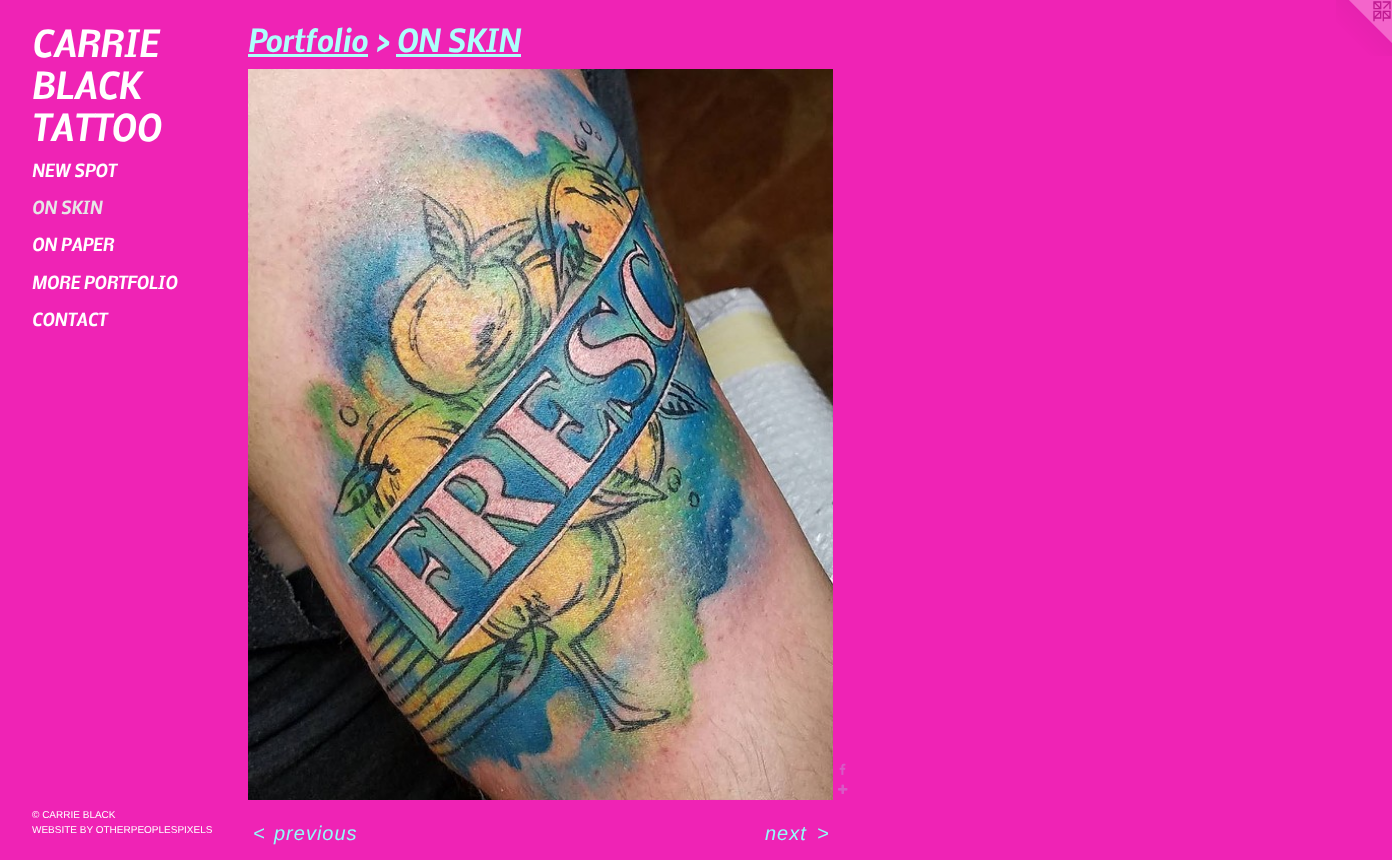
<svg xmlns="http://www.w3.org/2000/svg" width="1392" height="860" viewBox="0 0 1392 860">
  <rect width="100%" height="100%" fill="rgb(239,35,181)"/>
  <g font-family="Nobile" font-size="35" font-weight="bold" font-style="italic" fill="rgb(255,255,255)">
    <text>
      <tspan x="32" y="57">CARRIE</tspan>
      <tspan x="32" y="99">BLACK</tspan>
      <tspan x="32" y="141">TATTOO</tspan>
    </text>
  </g>
  <text x="32" y="177" font-family="Nobile" font-size="17" font-weight="bold" font-style="italic" fill="rgb(255,255,255)">NEW SPOT</text>
  <text x="32" y="214" font-family="Nobile" font-size="17" font-weight="bold" font-style="italic" fill="rgb(230,230,230)">ON SKIN</text>
  <g font-family="Nobile" font-size="17" font-weight="bold" font-style="italic" fill="rgb(255,255,255)">
    <text x="32" y="251">ON PAPER</text>
    <text x="32" y="289">MORE PORTFOLIO</text>
    <text x="32" y="326">CONTACT</text>
  </g>
  <g font-family="Liberation Sans" font-size="10" fill="rgb(255,255,255)">
    <text>
      <tspan x="32" y="818">© CARRIE BLACK</tspan>
      <tspan x="32" y="833">WEBSITE BY OTHERPEOPLESPIXELS</tspan>
    </text>
  </g>
  <text x="248" y="52" font-family="Nobile" font-size="30" font-weight="bold" font-style="italic" fill="rgb(173,255,251)">Portfolio &gt; ON SKIN</text>
  <rect x="248" y="54" width="120" height="3" fill="rgb(173,255,251)"/>
  <rect x="396" y="54" width="125" height="3" fill="rgb(173,255,251)"/>
  <image x="248" y="69" width="585" height="731" href="pic1.png"/>
  <image x="839" y="763" width="7" height="12" href="pic2.png"/>
  <image x="838" y="784" width="10" height="10" href="pic3.png"/>
  <g font-family="Liberation Sans" font-size="20" font-style="italic" letter-spacing="1" fill="rgb(147,251,248)">
    <text x="253" y="840">&lt;</text>
    <text x="274" y="840">previous</text>
    <text x="765" y="840">next</text>
    <text x="817" y="840">&gt;</text>
  </g>
  <image x="1336" y="0" width="56" height="56" href="pic4.png"/>
</svg>
